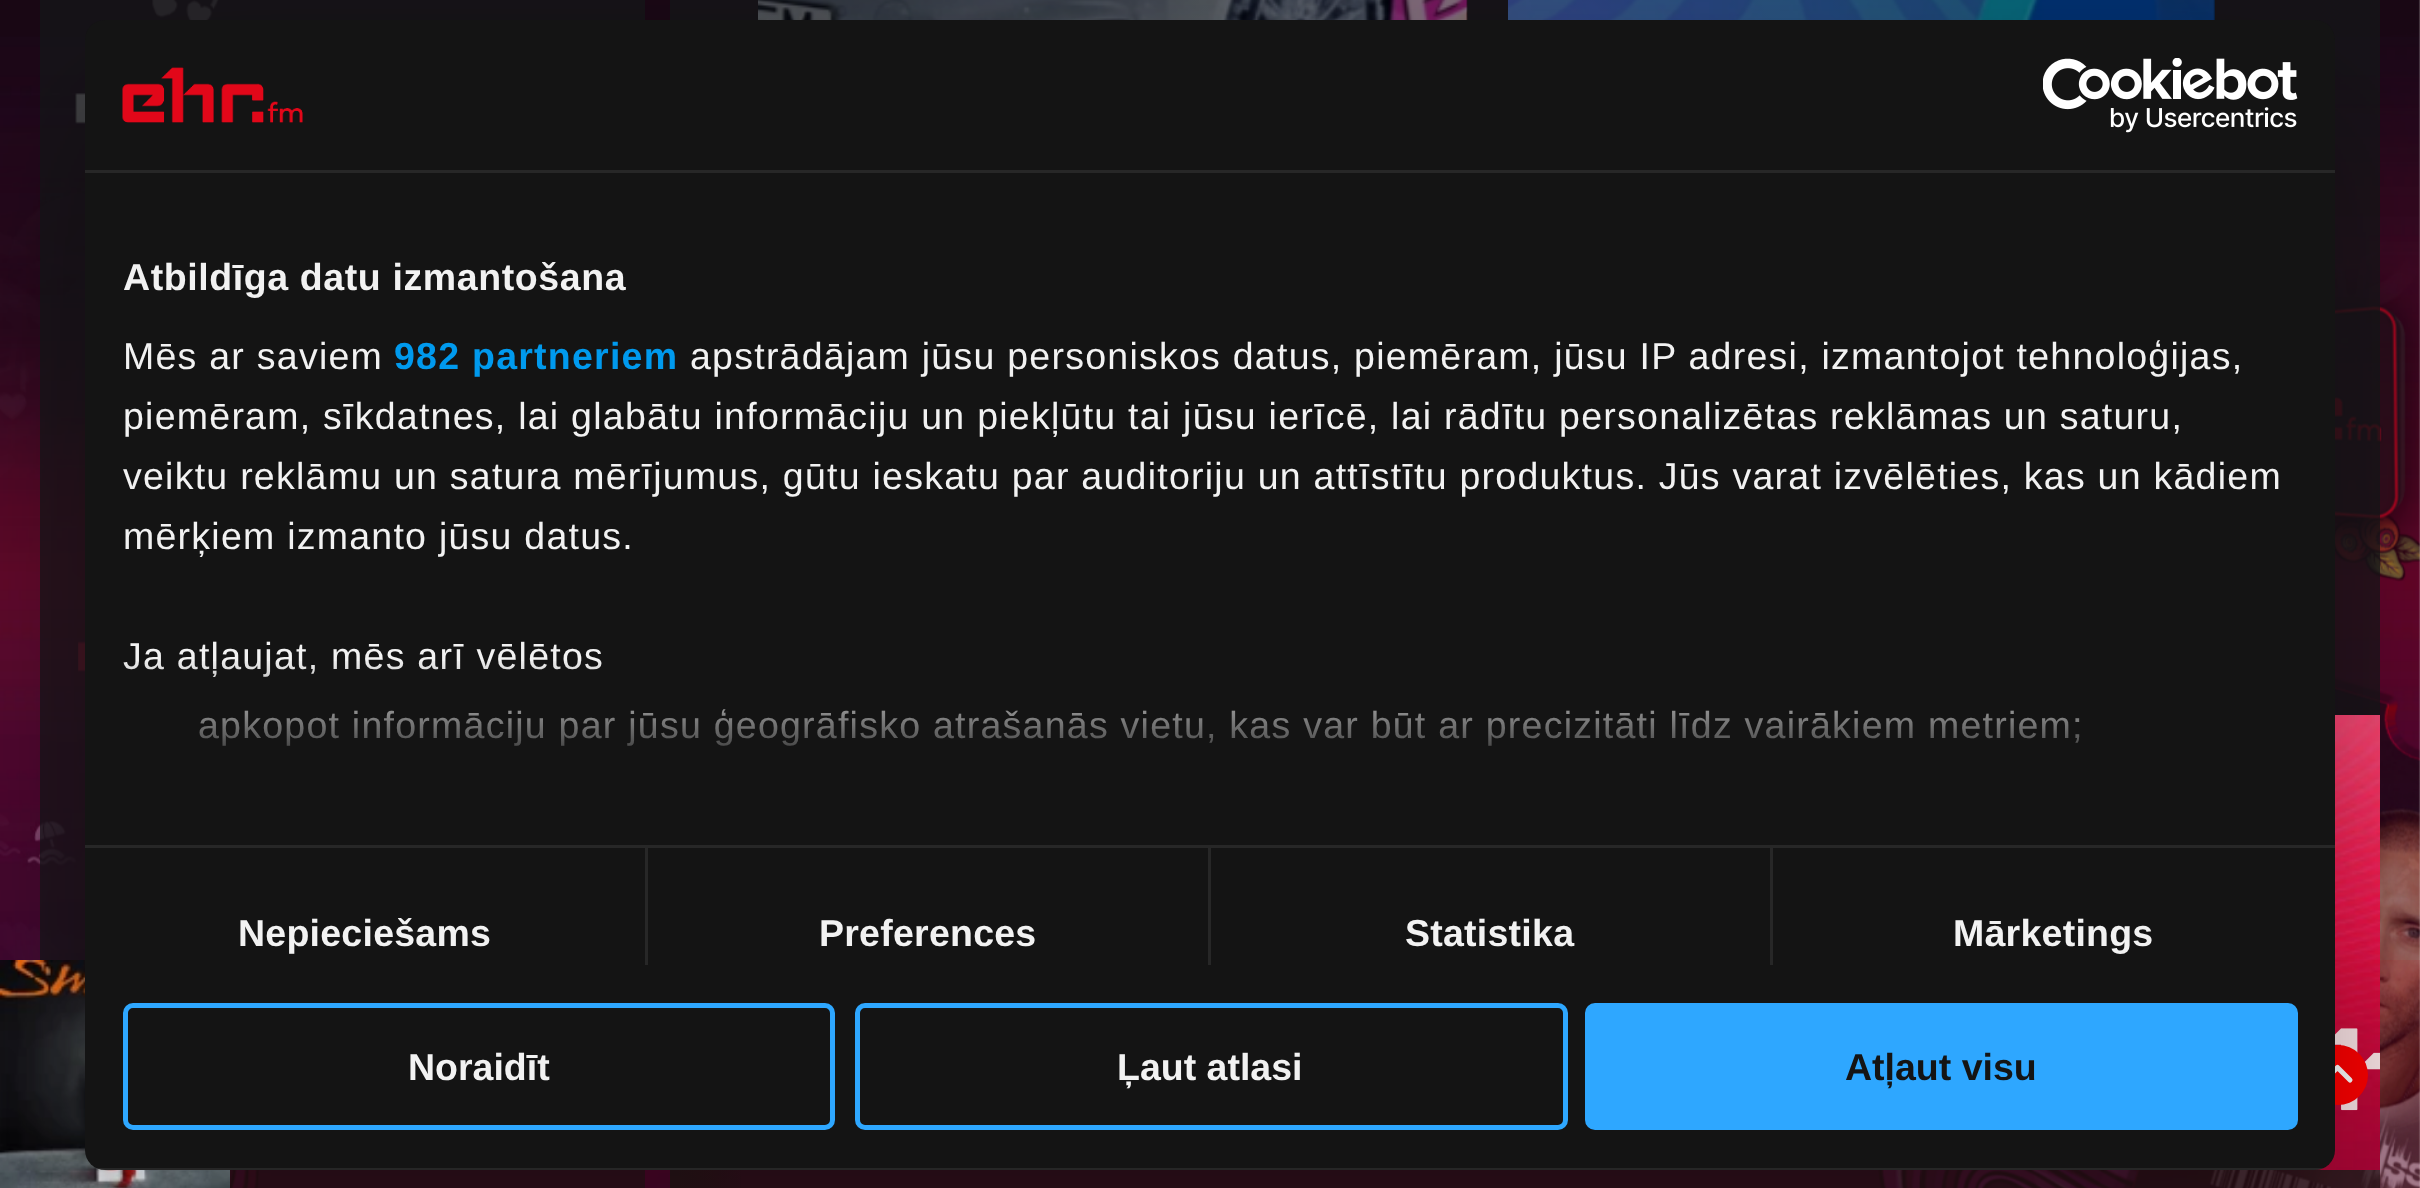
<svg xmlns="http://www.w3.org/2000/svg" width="2420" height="1188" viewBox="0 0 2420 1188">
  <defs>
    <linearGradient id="g1" gradientUnits="userSpaceOnUse" x1="1113" y1="-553" x2="1113" y2="230"><stop offset="0.2" stop-color="rgb(0,0,0)" stop-opacity="0"/><stop offset="0.5" stop-color="rgb(0,0,0)" stop-opacity="0.5"/></linearGradient>
    <linearGradient id="g2" gradientUnits="userSpaceOnUse" x1="1861" y1="-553" x2="1861" y2="230"><stop offset="0.2" stop-color="rgb(0,0,0)" stop-opacity="0"/><stop offset="0.5" stop-color="rgb(0,0,0)" stop-opacity="0.5"/></linearGradient>
    <linearGradient id="g3" gradientUnits="userSpaceOnUse" x1="670" y1="1004" x2="758" y2="1004"><stop offset="0" stop-color="rgb(21,23,25)"/><stop offset="0.08" stop-color="rgb(21,23,25)"/><stop offset="0.45" stop-color="rgb(21,23,25)" stop-opacity="0.7"/><stop offset="1" stop-color="rgb(21,23,25)" stop-opacity="0"/></linearGradient>
    <linearGradient id="g4" gradientUnits="userSpaceOnUse" x1="1194" y1="845" x2="1194" y2="658"><stop offset="0" stop-color="rgb(20,20,20)"/><stop offset="0.5" stop-color="rgb(20,20,20)" stop-opacity="0.8"/><stop offset="1" stop-color="rgb(20,20,20)" stop-opacity="0"/></linearGradient>
    <clipPath id="clip1"><rect x="85" y="20" width="2250" height="1150" rx="20"/></clipPath>
  </defs>
  <rect width="100%" height="100%" fill="rgb(255,255,255)"/>
  <image x="0" y="0" width="2420" height="1188" href="pic1.png"/>
  <rect x="40" y="0" width="605" height="1188" fill="rgba(21,23,25,0.75)"/>
  <rect x="670" y="0" width="1710" height="1188" fill="rgba(21,23,25,0.75)"/>
  <rect x="1466" y="0" width="2" height="20" fill="rgb(21,23,25)"/>
  <image x="758" y="0" width="710" height="20" href="pic2.png"/>
  <rect x="758" y="0" width="710" height="20" fill="url(#g1)"/>
  <rect x="2213" y="0" width="2" height="20" fill="rgb(21,23,25)"/>
  <image x="1508" y="0" width="707" height="20" href="pic3.png"/>
  <rect x="1508" y="0" width="707" height="20" fill="url(#g2)"/>
  <image x="2315" y="715" width="65" height="455" href="pic4.png"/>
  <image x="2335" y="1028" width="45" height="83" href="pic5.png"/>
  <rect x="670" y="1170" width="71" height="18" fill="url(#g3)"/>
  <rect x="230" y="960" width="2190" height="228" fill="rgba(230,0,23,0.1)"/>
  <image x="0" y="960" width="230" height="228" href="pic6.png"/>
  <circle cx="2338" cy="1075" r="30" fill="rgb(255,0,0)"/>
  <path d="M2350 1080L2337.5 1067.5M2337.5 1067.5L2325 1080" fill="none" stroke="rgb(255,255,255)" stroke-width="5" stroke-linecap="round" stroke-linejoin="round"/>
  <rect x="85" y="100" width="2250" height="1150" rx="20" fill="rgba(0,0,0,0.3)" filter="blur(85px)"/>
  <rect x="85" y="20" width="2250" height="1150" rx="20" fill="rgb(20,20,20)"/>
  <rect x="85" y="170" width="2250" height="3" fill="rgb(39,39,39)"/>
  <image x="122" y="67" width="181" height="56" href="pic7.png"/>
  <image x="2043" y="58" width="255" height="75" href="pic8.png"/>
  <rect x="85" y="845" width="2250" height="3" fill="rgb(39,39,39)"/>
  <text x="123" y="290" font-family="Liberation Sans" font-size="37.5" font-weight="bold" letter-spacing="0.6" fill="rgb(242,242,242)">Atbildīga datu izmantošana</text>
  <text x="123" y="369" font-family="Liberation Sans" font-size="37.5" letter-spacing="1.25" fill="rgb(242,242,242)">Mēs ar saviem</text>
  <text x="394" y="369" font-family="Liberation Sans" font-size="37.5" font-weight="bold" letter-spacing="1.25" fill="rgb(0,154,238)">982 partneriem</text>
  <g font-family="Liberation Sans" font-size="37.5" letter-spacing="1.25" fill="rgb(242,242,242)">
    <text x="690" y="369">apstrādājam jūsu personiskos datus, piemēram, jūsu IP adresi, izmantojot tehnoloģijas,</text>
    <text>
      <tspan x="123" y="429">piemēram, sīkdatnes, lai glabātu informāciju un piekļūtu tai jūsu ierīcē, lai rādītu personalizētas reklāmas un saturu,</tspan>
      <tspan x="123" y="489">veiktu reklāmu un satura mērījumus, gūtu ieskatu par auditoriju un attīstītu produktus. Jūs varat izvēlēties, kas un kādiem</tspan>
      <tspan x="123" y="549">mērķiem izmanto jūsu datus.</tspan>
    </text>
    <text x="123" y="669">Ja atļaujat, mēs arī vēlētos</text>
    <text x="198" y="738">apkopot informāciju par jūsu ģeogrāfisko atrašanās vietu, kas var būt ar precizitāti līdz vairākiem metriem;</text>
  </g>
  <rect x="123" y="661" width="1956" height="85" fill="url(#g4)"/>
  <rect x="645" y="848" width="3" height="117" fill="rgb(39,39,39)"/>
  <text x="238" y="946" font-family="Liberation Sans" font-size="37.5" font-weight="bold" letter-spacing="0.25" fill="rgb(242,242,242)">Nepieciešams</text>
  <rect x="1208" y="848" width="3" height="117" fill="rgb(39,39,39)"/>
  <text x="819" y="946" font-family="Liberation Sans" font-size="37.5" font-weight="bold" letter-spacing="0.25" fill="rgb(242,242,242)">Preferences</text>
  <rect x="1770" y="848" width="3" height="117" fill="rgb(39,39,39)"/>
  <g font-family="Liberation Sans" font-size="37.5" font-weight="bold" letter-spacing="0.25" fill="rgb(242,242,242)">
    <text x="1405" y="946">Statistika</text>
    <text x="1953" y="946">Mārketings</text>
  </g>
  <g clip-path="url(#clip1)">
    <rect x="97" y="1168" width="2226" height="2" fill="rgba(255,255,255,0.08)"/>
  </g>
  <rect x="125.5" y="1005.5" width="707" height="122" rx="7.5" fill="none" stroke="rgb(46,167,255)" stroke-width="5"/>
  <text x="408" y="1080" font-family="Liberation Sans" font-size="37.5" font-weight="bold" fill="rgb(242,242,242)">Noraidīt</text>
  <rect x="857.5" y="1005.5" width="708" height="122" rx="7.5" fill="none" stroke="rgb(46,167,255)" stroke-width="5"/>
  <text x="1117" y="1080" font-family="Liberation Sans" font-size="37.5" font-weight="bold" fill="rgb(242,242,242)">Ļaut atlasi</text>
  <rect x="1587.5" y="1005.5" width="708" height="122" rx="7.5" fill="rgb(46,167,255)" stroke="rgb(46,167,255)" stroke-width="5"/>
  <text x="1845" y="1080" font-family="Liberation Sans" font-size="37.5" font-weight="bold" fill="rgb(20,20,20)">Atļaut visu</text>
</svg>
